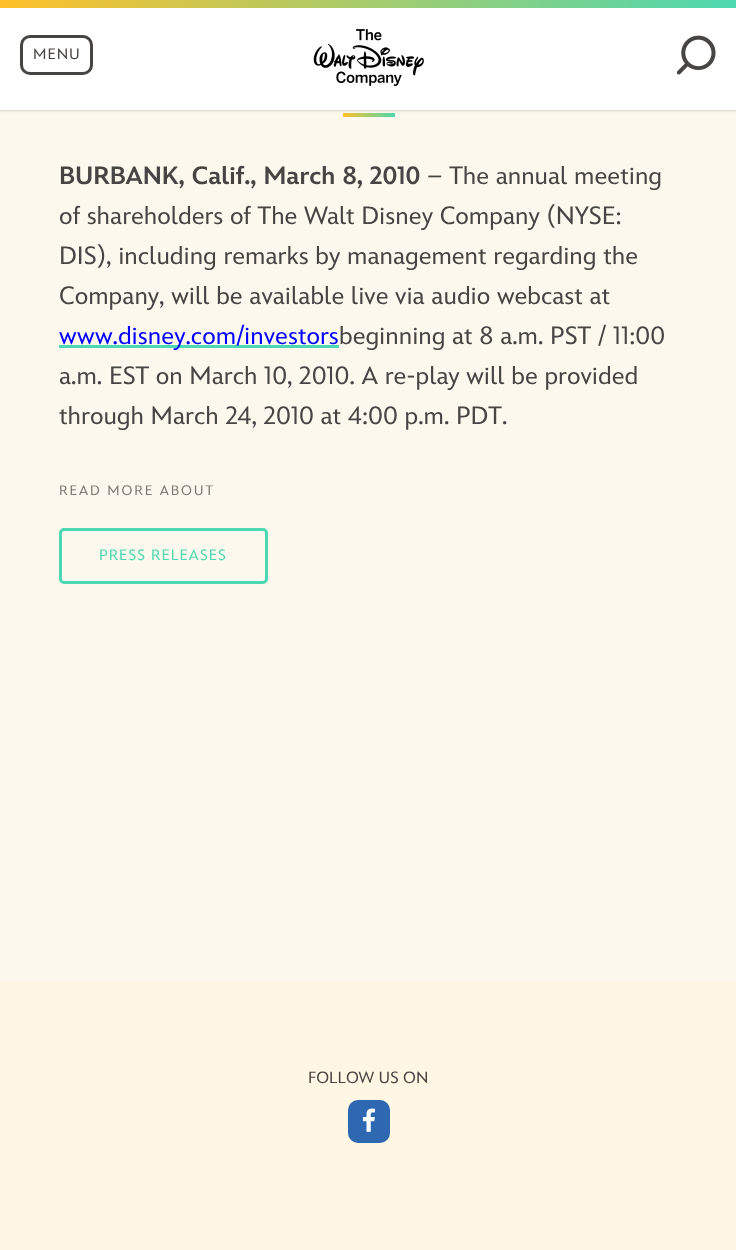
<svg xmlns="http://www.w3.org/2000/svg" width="736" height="1250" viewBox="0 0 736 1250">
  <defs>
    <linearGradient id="g1" gradientUnits="userSpaceOnUse" x1="343" y1="114" x2="395" y2="114"><stop offset="0" stop-color="rgb(255,192,41)"/><stop offset="1" stop-color="rgb(76,216,176)"/></linearGradient>
    <linearGradient id="g2" gradientUnits="userSpaceOnUse" x1="0" y1="3.8" x2="736" y2="3.7"><stop offset="0" stop-color="rgb(255,192,41)"/><stop offset="1" stop-color="rgb(76,216,176)"/></linearGradient>
  </defs>
  <rect width="100%" height="100%" fill="rgb(252,248,238)"/>
  <rect x="343" y="113" width="52" height="4" fill="url(#g1)"/>
  <rect x="0" y="1" width="736" height="110" fill="rgba(0,0,0,0.15)" filter="blur(1px)"/>
  <rect x="0" y="8" width="736" height="102" fill="rgb(255,255,255)"/>
  <rect x="0" y="0" width="736" height="8" fill="url(#g2)"/>
  <rect x="21.5" y="36.5" width="70" height="37" rx="8.5" fill="none" stroke="rgb(71,69,67)" stroke-width="3"/>
  <text x="33" y="59" font-family="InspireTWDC" font-size="15" letter-spacing="1" fill="rgb(71,69,67)">MENU</text>
  <image x="313" y="29" width="111" height="57" href="pic1.png"/>
  <image x="676" y="35" width="40" height="40" href="pic2.png"/>
  <text x="59" y="184" font-family="InspireTWDC" font-size="25" font-weight="900" fill="rgb(71,69,67)">BURBANK, Calif., March 8, 2010</text>
  <g font-family="InspireTWDC" font-size="25" fill="rgb(71,69,67)">
    <text x="427" y="184">– The annual meeting</text>
    <text>
      <tspan x="59" y="224">of shareholders of The Walt Disney Company (NYSE:</tspan>
      <tspan x="59" y="264">DIS), including remarks by management regarding the</tspan>
      <tspan x="59" y="304">Company, will be available live via audio webcast at</tspan>
    </text>
  </g>
  <rect x="59" y="345" width="280" height="3" fill="rgb(76,216,176)"/>
  <text x="59" y="344" font-family="InspireTWDC" font-size="25" fill="rgb(0,0,255)">www.disney.com/investors</text>
  <g font-family="InspireTWDC" font-size="25" fill="rgb(71,69,67)">
    <text x="339" y="344">beginning at 8 a.m. PST / 11:00</text>
    <text>
      <tspan x="59" y="384">a.m. EST on March 10, 2010. A re-play will be provided</tspan>
      <tspan x="59" y="424">through March 24, 2010 at 4:00 p.m. PDT.</tspan>
    </text>
  </g>
  <text x="59" y="495" font-family="InspireTWDC" font-size="13.75" letter-spacing="1.9" fill="rgb(124,120,116)">READ MORE ABOUT</text>
  <rect x="60.5" y="529.5" width="206" height="53" rx="3.5" fill="none" stroke="rgb(76,216,176)" stroke-width="3"/>
  <text x="99" y="560" font-family="InspireTWDC" font-size="15" letter-spacing="1" fill="rgb(76,216,176)">PRESS RELEASES</text>
  <rect x="0" y="981" width="736" height="269" fill="rgb(255,247,228)"/>
  <text x="308" y="1083" font-family="InspireTWDC" font-size="16.25" fill="rgb(71,69,67)">FOLLOW US ON</text>
  <rect x="348" y="1100" width="42" height="43" rx="10" fill="rgb(45,104,177)"/>
  <image x="362" y="1108" width="13" height="24" href="pic3.png"/>
</svg>
